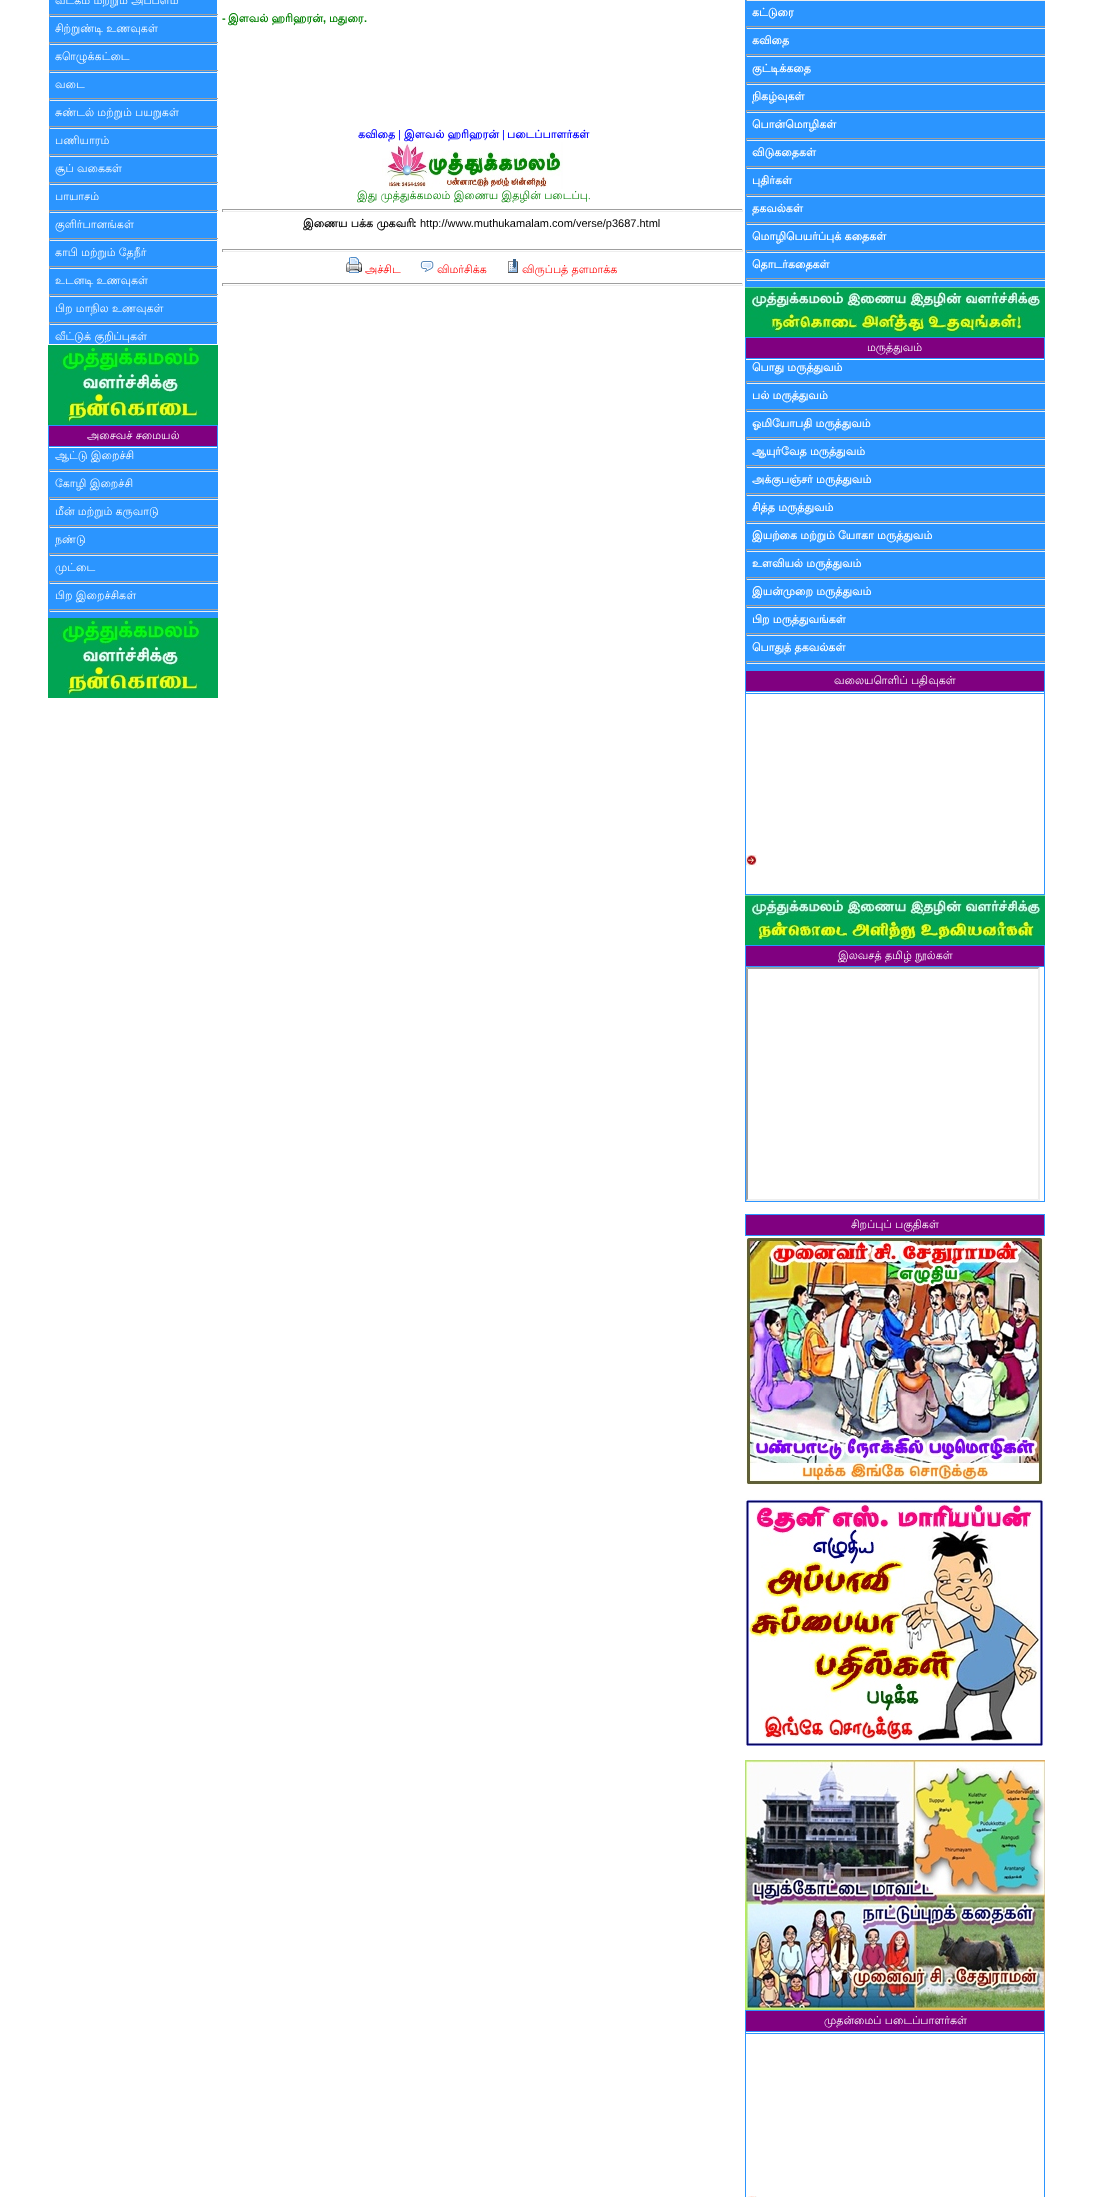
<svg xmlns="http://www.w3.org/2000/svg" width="1096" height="2197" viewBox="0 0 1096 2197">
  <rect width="100%" height="100%" fill="rgb(255,255,255)"/>
  <rect x="49" y="0" width="168" height="344" fill="rgb(43,149,255)"/>
  <text x="55" y="4" font-family="Lohit Tamil" font-size="11" fill="rgb(255,255,255)">வடகம் மற்றும் அப்பளம்</text>
  <rect x="49" y="14" width="169" height="1" fill="rgb(159,159,159)"/>
  <rect x="49" y="16" width="169" height="1" fill="rgb(238,238,238)"/>
  <rect x="49" y="14" width="1" height="3" fill="rgb(159,159,159)"/>
  <text x="55" y="32" font-family="Lohit Tamil" font-size="11" fill="rgb(255,255,255)">சிற்றுண்டி உணவுகள்</text>
  <rect x="49" y="42" width="169" height="1" fill="rgb(159,159,159)"/>
  <rect x="49" y="44" width="169" height="1" fill="rgb(238,238,238)"/>
  <rect x="49" y="42" width="1" height="3" fill="rgb(159,159,159)"/>
  <text x="55" y="60" font-family="Lohit Tamil" font-size="11" fill="rgb(255,255,255)">கொழுக்கட்டை</text>
  <rect x="49" y="70" width="169" height="1" fill="rgb(159,159,159)"/>
  <rect x="49" y="72" width="169" height="1" fill="rgb(238,238,238)"/>
  <rect x="49" y="70" width="1" height="3" fill="rgb(159,159,159)"/>
  <text x="55" y="88" font-family="Lohit Tamil" font-size="11" fill="rgb(255,255,255)">வடை</text>
  <rect x="49" y="98" width="169" height="1" fill="rgb(159,159,159)"/>
  <rect x="49" y="100" width="169" height="1" fill="rgb(238,238,238)"/>
  <rect x="49" y="98" width="1" height="3" fill="rgb(159,159,159)"/>
  <text x="55" y="116" font-family="Lohit Tamil" font-size="11" fill="rgb(255,255,255)">சுண்டல் மற்றும் பயறுகள்</text>
  <rect x="49" y="126" width="169" height="1" fill="rgb(159,159,159)"/>
  <rect x="49" y="128" width="169" height="1" fill="rgb(238,238,238)"/>
  <rect x="49" y="126" width="1" height="3" fill="rgb(159,159,159)"/>
  <text x="55" y="144" font-family="Lohit Tamil" font-size="11" fill="rgb(255,255,255)">பணியாரம்</text>
  <rect x="49" y="154" width="169" height="1" fill="rgb(159,159,159)"/>
  <rect x="49" y="156" width="169" height="1" fill="rgb(238,238,238)"/>
  <rect x="49" y="154" width="1" height="3" fill="rgb(159,159,159)"/>
  <text x="55" y="172" font-family="Lohit Tamil" font-size="11" fill="rgb(255,255,255)">சூப் வகைகள்</text>
  <rect x="49" y="182" width="169" height="1" fill="rgb(159,159,159)"/>
  <rect x="49" y="184" width="169" height="1" fill="rgb(238,238,238)"/>
  <rect x="49" y="182" width="1" height="3" fill="rgb(159,159,159)"/>
  <text x="55" y="200" font-family="Lohit Tamil" font-size="11" fill="rgb(255,255,255)">பாயாசம்</text>
  <rect x="49" y="210" width="169" height="1" fill="rgb(159,159,159)"/>
  <rect x="49" y="212" width="169" height="1" fill="rgb(238,238,238)"/>
  <rect x="49" y="210" width="1" height="3" fill="rgb(159,159,159)"/>
  <text x="55" y="228" font-family="Lohit Tamil" font-size="11" fill="rgb(255,255,255)">குளிர்பானங்கள்</text>
  <rect x="49" y="238" width="169" height="1" fill="rgb(159,159,159)"/>
  <rect x="49" y="240" width="169" height="1" fill="rgb(238,238,238)"/>
  <rect x="49" y="238" width="1" height="3" fill="rgb(159,159,159)"/>
  <text x="55" y="256" font-family="Lohit Tamil" font-size="11" fill="rgb(255,255,255)">காபி மற்றும் தேநீர்</text>
  <rect x="49" y="266" width="169" height="1" fill="rgb(159,159,159)"/>
  <rect x="49" y="268" width="169" height="1" fill="rgb(238,238,238)"/>
  <rect x="49" y="266" width="1" height="3" fill="rgb(159,159,159)"/>
  <text x="55" y="284" font-family="Lohit Tamil" font-size="11" fill="rgb(255,255,255)">உடனடி உணவுகள்</text>
  <rect x="49" y="294" width="169" height="1" fill="rgb(159,159,159)"/>
  <rect x="49" y="296" width="169" height="1" fill="rgb(238,238,238)"/>
  <rect x="49" y="294" width="1" height="3" fill="rgb(159,159,159)"/>
  <text x="55" y="312" font-family="Lohit Tamil" font-size="11" fill="rgb(255,255,255)">பிற மாநில உணவுகள்</text>
  <rect x="49" y="322" width="169" height="1" fill="rgb(159,159,159)"/>
  <rect x="49" y="324" width="169" height="1" fill="rgb(238,238,238)"/>
  <rect x="49" y="322" width="1" height="3" fill="rgb(159,159,159)"/>
  <text x="55" y="340" font-family="Lohit Tamil" font-size="11" fill="rgb(255,255,255)">வீட்டுக் குறிப்புகள்</text>
  <image x="48" y="345" width="170" height="80" href="pic1.png"/>
  <rect x="48" y="425" width="170" height="193" fill="rgb(43,149,255)"/>
  <rect x="49" y="426" width="168" height="20" fill="rgb(128,0,128)"/>
  <text x="87" y="439" font-family="Lohit Tamil" font-size="11" fill="rgb(255,255,255)">அசைவச் சமையல்</text>
  <rect x="49" y="447" width="168" height="1" fill="rgb(255,255,255)"/>
  <text x="55" y="459" font-family="Lohit Tamil" font-size="11" fill="rgb(255,255,255)">ஆட்டு இறைச்சி</text>
  <rect x="49" y="469" width="169" height="1" fill="rgb(159,159,159)"/>
  <rect x="49" y="471" width="169" height="1" fill="rgb(238,238,238)"/>
  <rect x="49" y="469" width="1" height="3" fill="rgb(159,159,159)"/>
  <text x="55" y="487" font-family="Lohit Tamil" font-size="11" fill="rgb(255,255,255)">கோழி இறைச்சி</text>
  <rect x="49" y="497" width="169" height="1" fill="rgb(159,159,159)"/>
  <rect x="49" y="499" width="169" height="1" fill="rgb(238,238,238)"/>
  <rect x="49" y="497" width="1" height="3" fill="rgb(159,159,159)"/>
  <text x="55" y="515" font-family="Lohit Tamil" font-size="11" fill="rgb(255,255,255)">மீன் மற்றும் கருவாடு</text>
  <rect x="49" y="525" width="169" height="1" fill="rgb(159,159,159)"/>
  <rect x="49" y="527" width="169" height="1" fill="rgb(238,238,238)"/>
  <rect x="49" y="525" width="1" height="3" fill="rgb(159,159,159)"/>
  <text x="55" y="543" font-family="Lohit Tamil" font-size="11" fill="rgb(255,255,255)">நண்டு</text>
  <rect x="49" y="553" width="169" height="1" fill="rgb(159,159,159)"/>
  <rect x="49" y="555" width="169" height="1" fill="rgb(238,238,238)"/>
  <rect x="49" y="553" width="1" height="3" fill="rgb(159,159,159)"/>
  <text x="55" y="571" font-family="Lohit Tamil" font-size="11" fill="rgb(255,255,255)">முட்டை</text>
  <rect x="49" y="581" width="169" height="1" fill="rgb(159,159,159)"/>
  <rect x="49" y="583" width="169" height="1" fill="rgb(238,238,238)"/>
  <rect x="49" y="581" width="1" height="3" fill="rgb(159,159,159)"/>
  <text x="55" y="599" font-family="Lohit Tamil" font-size="11" fill="rgb(255,255,255)">பிற இறைச்சிகள்</text>
  <rect x="49" y="609" width="169" height="1" fill="rgb(159,159,159)"/>
  <rect x="49" y="611" width="169" height="1" fill="rgb(238,238,238)"/>
  <rect x="49" y="609" width="1" height="3" fill="rgb(159,159,159)"/>
  <image x="48" y="618" width="170" height="80" href="pic1.png"/>
  <text x="222" y="22" font-family="Liberation Sans" font-size="11" font-weight="bold" fill="rgb(0,128,0)">-</text>
  <g font-family="Lohit Tamil" font-size="11" font-weight="bold" fill="rgb(0,128,0)">
    <text x="228" y="22">இளவல் ஹரிஹரன்</text>
    <text x="329" y="22">மதுரை</text>
  </g>
  <g font-family="Liberation Sans" font-size="11" font-weight="bold" fill="rgb(0,128,0)">
    <text x="323" y="22">,</text>
    <text x="364" y="22">.</text>
  </g>
  <text x="358" y="138" font-family="Lohit Tamil" font-size="11" font-weight="bold" fill="rgb(0,0,255)">கவிதை</text>
  <text x="398" y="138" font-family="Liberation Sans" font-size="11" fill="rgb(0,0,255)">|</text>
  <text x="404" y="138" font-family="Lohit Tamil" font-size="11" font-weight="bold" fill="rgb(0,0,255)">இளவல் ஹரிஹரன்</text>
  <text x="502" y="138" font-family="Liberation Sans" font-size="11" fill="rgb(0,0,255)">|</text>
  <text x="507" y="138" font-family="Lohit Tamil" font-size="11" font-weight="bold" fill="rgb(0,0,255)">படைப்பாளர்கள்</text>
  <image x="382" y="142" width="181" height="47" href="pic2.png"/>
  <text x="357" y="199" font-family="Lohit Tamil" font-size="11" fill="rgb(0,128,0)">இது முத்துக்கமலம் இணைய இதழின் படைப்பு.</text>
  <rect x="222" y="209" width="521" height="1" fill="rgb(159,159,159)"/>
  <rect x="742" y="209" width="1" height="3" fill="rgb(238,238,238)"/>
  <rect x="222" y="211" width="521" height="1" fill="rgb(238,238,238)"/>
  <rect x="222" y="209" width="1" height="3" fill="rgb(159,159,159)"/>
  <text x="303" y="227" font-family="Lohit Tamil" font-size="11" font-weight="bold" fill="rgb(0,0,0)">இணைய பக்க முகவரி</text>
  <text x="413" y="227" font-family="Liberation Sans" font-size="11" font-weight="bold" fill="rgb(0,0,0)">:</text>
  <text x="420" y="227" font-family="Liberation Sans" font-size="11" fill="rgb(0,0,0)">http://www.muthukamalam.com/verse/p3687.html</text>
  <rect x="222" y="249" width="521" height="1" fill="rgb(159,159,159)"/>
  <rect x="742" y="249" width="1" height="3" fill="rgb(238,238,238)"/>
  <rect x="222" y="251" width="521" height="1" fill="rgb(238,238,238)"/>
  <rect x="222" y="249" width="1" height="3" fill="rgb(159,159,159)"/>
  <image x="346" y="257" width="16" height="16" href="pic3.png"/>
  <text x="365" y="273" font-family="Lohit Tamil" font-size="11" fill="rgb(255,0,0)">அச்சிட</text>
  <image x="420" y="261" width="14" height="11" href="pic4.png"/>
  <text x="437" y="273" font-family="Lohit Tamil" font-size="11" fill="rgb(255,0,0)">விமர்சிக்க</text>
  <image x="508" y="259" width="10" height="14" href="pic5.png"/>
  <text x="522" y="273" font-family="Lohit Tamil" font-size="11" fill="rgb(255,0,0)">விருப்பத் தளமாக்க</text>
  <rect x="222" y="283" width="521" height="1" fill="rgb(159,159,159)"/>
  <rect x="742" y="283" width="1" height="3" fill="rgb(238,238,238)"/>
  <rect x="222" y="285" width="521" height="1" fill="rgb(238,238,238)"/>
  <rect x="222" y="283" width="1" height="3" fill="rgb(159,159,159)"/>
  <rect x="745" y="0" width="300" height="287" fill="rgb(43,149,255)"/>
  <rect x="746" y="0" width="299" height="1" fill="rgb(238,238,238)"/>
  <rect x="746" y="0" width="1" height="1" fill="rgb(159,159,159)"/>
  <text x="752" y="16" font-family="Lohit Tamil" font-size="11" font-weight="bold" fill="rgb(255,255,255)">கட்டுரை</text>
  <rect x="746" y="26" width="299" height="1" fill="rgb(159,159,159)"/>
  <rect x="746" y="28" width="299" height="1" fill="rgb(238,238,238)"/>
  <rect x="746" y="26" width="1" height="3" fill="rgb(159,159,159)"/>
  <text x="752" y="44" font-family="Lohit Tamil" font-size="11" font-weight="bold" fill="rgb(255,255,255)">கவிதை</text>
  <rect x="746" y="54" width="299" height="1" fill="rgb(159,159,159)"/>
  <rect x="746" y="56" width="299" height="1" fill="rgb(238,238,238)"/>
  <rect x="746" y="54" width="1" height="3" fill="rgb(159,159,159)"/>
  <text x="752" y="72" font-family="Lohit Tamil" font-size="11" font-weight="bold" fill="rgb(255,255,255)">குட்டிக்கதை</text>
  <rect x="746" y="82" width="299" height="1" fill="rgb(159,159,159)"/>
  <rect x="746" y="84" width="299" height="1" fill="rgb(238,238,238)"/>
  <rect x="746" y="82" width="1" height="3" fill="rgb(159,159,159)"/>
  <text x="752" y="100" font-family="Lohit Tamil" font-size="11" font-weight="bold" fill="rgb(255,255,255)">நிகழ்வுகள்</text>
  <rect x="746" y="110" width="299" height="1" fill="rgb(159,159,159)"/>
  <rect x="746" y="112" width="299" height="1" fill="rgb(238,238,238)"/>
  <rect x="746" y="110" width="1" height="3" fill="rgb(159,159,159)"/>
  <text x="752" y="128" font-family="Lohit Tamil" font-size="11" font-weight="bold" fill="rgb(255,255,255)">பொன்மொழிகள்</text>
  <rect x="746" y="138" width="299" height="1" fill="rgb(159,159,159)"/>
  <rect x="746" y="140" width="299" height="1" fill="rgb(238,238,238)"/>
  <rect x="746" y="138" width="1" height="3" fill="rgb(159,159,159)"/>
  <text x="752" y="156" font-family="Lohit Tamil" font-size="11" font-weight="bold" fill="rgb(255,255,255)">விடுகதைகள்</text>
  <rect x="746" y="166" width="299" height="1" fill="rgb(159,159,159)"/>
  <rect x="746" y="168" width="299" height="1" fill="rgb(238,238,238)"/>
  <rect x="746" y="166" width="1" height="3" fill="rgb(159,159,159)"/>
  <text x="752" y="184" font-family="Lohit Tamil" font-size="11" font-weight="bold" fill="rgb(255,255,255)">புதிர்கள்</text>
  <rect x="746" y="194" width="299" height="1" fill="rgb(159,159,159)"/>
  <rect x="746" y="196" width="299" height="1" fill="rgb(238,238,238)"/>
  <rect x="746" y="194" width="1" height="3" fill="rgb(159,159,159)"/>
  <text x="752" y="212" font-family="Lohit Tamil" font-size="11" font-weight="bold" fill="rgb(255,255,255)">தகவல்கள்</text>
  <rect x="746" y="222" width="299" height="1" fill="rgb(159,159,159)"/>
  <rect x="746" y="224" width="299" height="1" fill="rgb(238,238,238)"/>
  <rect x="746" y="222" width="1" height="3" fill="rgb(159,159,159)"/>
  <text x="752" y="240" font-family="Lohit Tamil" font-size="11" font-weight="bold" fill="rgb(255,255,255)">மொழிபெயர்ப்புக் கதைகள்</text>
  <rect x="746" y="250" width="299" height="1" fill="rgb(159,159,159)"/>
  <rect x="746" y="252" width="299" height="1" fill="rgb(238,238,238)"/>
  <rect x="746" y="250" width="1" height="3" fill="rgb(159,159,159)"/>
  <text x="752" y="268" font-family="Lohit Tamil" font-size="11" font-weight="bold" fill="rgb(255,255,255)">தொடர்கதைகள்</text>
  <rect x="746" y="278" width="299" height="1" fill="rgb(159,159,159)"/>
  <rect x="746" y="280" width="299" height="1" fill="rgb(238,238,238)"/>
  <rect x="746" y="278" width="1" height="3" fill="rgb(159,159,159)"/>
  <image x="745" y="287" width="300" height="50" href="pic6.png"/>
  <rect x="745" y="337" width="300" height="558" fill="rgb(43,149,255)"/>
  <rect x="746" y="338" width="298" height="20" fill="rgb(128,0,128)"/>
  <text x="867" y="351" font-family="Lohit Tamil" font-size="11" fill="rgb(255,255,255)">மருத்துவம்</text>
  <rect x="746" y="359" width="298" height="1" fill="rgb(255,255,255)"/>
  <text x="752" y="371" font-family="Lohit Tamil" font-size="11" font-weight="bold" fill="rgb(255,255,255)">பொது மருத்துவம்</text>
  <rect x="746" y="381" width="299" height="1" fill="rgb(159,159,159)"/>
  <rect x="746" y="383" width="299" height="1" fill="rgb(238,238,238)"/>
  <rect x="746" y="381" width="1" height="3" fill="rgb(159,159,159)"/>
  <text x="752" y="399" font-family="Lohit Tamil" font-size="11" font-weight="bold" fill="rgb(255,255,255)">பல் மருத்துவம்</text>
  <rect x="746" y="409" width="299" height="1" fill="rgb(159,159,159)"/>
  <rect x="746" y="411" width="299" height="1" fill="rgb(238,238,238)"/>
  <rect x="746" y="409" width="1" height="3" fill="rgb(159,159,159)"/>
  <text x="752" y="427" font-family="Lohit Tamil" font-size="11" font-weight="bold" fill="rgb(255,255,255)">ஓமியோபதி மருத்துவம்</text>
  <rect x="746" y="437" width="299" height="1" fill="rgb(159,159,159)"/>
  <rect x="746" y="439" width="299" height="1" fill="rgb(238,238,238)"/>
  <rect x="746" y="437" width="1" height="3" fill="rgb(159,159,159)"/>
  <text x="752" y="455" font-family="Lohit Tamil" font-size="11" font-weight="bold" fill="rgb(255,255,255)">ஆயுர்வேத மருத்துவம்</text>
  <rect x="746" y="465" width="299" height="1" fill="rgb(159,159,159)"/>
  <rect x="746" y="467" width="299" height="1" fill="rgb(238,238,238)"/>
  <rect x="746" y="465" width="1" height="3" fill="rgb(159,159,159)"/>
  <text x="752" y="483" font-family="Lohit Tamil" font-size="11" font-weight="bold" fill="rgb(255,255,255)">அக்குபஞ்சர் மருத்துவம்</text>
  <rect x="746" y="493" width="299" height="1" fill="rgb(159,159,159)"/>
  <rect x="746" y="495" width="299" height="1" fill="rgb(238,238,238)"/>
  <rect x="746" y="493" width="1" height="3" fill="rgb(159,159,159)"/>
  <text x="752" y="511" font-family="Lohit Tamil" font-size="11" font-weight="bold" fill="rgb(255,255,255)">சித்த மருத்துவம்</text>
  <rect x="746" y="521" width="299" height="1" fill="rgb(159,159,159)"/>
  <rect x="746" y="523" width="299" height="1" fill="rgb(238,238,238)"/>
  <rect x="746" y="521" width="1" height="3" fill="rgb(159,159,159)"/>
  <text x="752" y="539" font-family="Lohit Tamil" font-size="11" font-weight="bold" fill="rgb(255,255,255)">இயற்கை மற்றும் யோகா மருத்துவம்</text>
  <rect x="746" y="549" width="299" height="1" fill="rgb(159,159,159)"/>
  <rect x="746" y="551" width="299" height="1" fill="rgb(238,238,238)"/>
  <rect x="746" y="549" width="1" height="3" fill="rgb(159,159,159)"/>
  <text x="752" y="567" font-family="Lohit Tamil" font-size="11" font-weight="bold" fill="rgb(255,255,255)">உளவியல் மருத்துவம்</text>
  <rect x="746" y="577" width="299" height="1" fill="rgb(159,159,159)"/>
  <rect x="746" y="579" width="299" height="1" fill="rgb(238,238,238)"/>
  <rect x="746" y="577" width="1" height="3" fill="rgb(159,159,159)"/>
  <text x="752" y="595" font-family="Lohit Tamil" font-size="11" font-weight="bold" fill="rgb(255,255,255)">இயன்முறை மருத்துவம்</text>
  <rect x="746" y="605" width="299" height="1" fill="rgb(159,159,159)"/>
  <rect x="746" y="607" width="299" height="1" fill="rgb(238,238,238)"/>
  <rect x="746" y="605" width="1" height="3" fill="rgb(159,159,159)"/>
  <text x="752" y="623" font-family="Lohit Tamil" font-size="11" font-weight="bold" fill="rgb(255,255,255)">பிற மருத்துவங்கள்</text>
  <rect x="746" y="633" width="299" height="1" fill="rgb(159,159,159)"/>
  <rect x="746" y="635" width="299" height="1" fill="rgb(238,238,238)"/>
  <rect x="746" y="633" width="1" height="3" fill="rgb(159,159,159)"/>
  <text x="752" y="651" font-family="Lohit Tamil" font-size="11" font-weight="bold" fill="rgb(255,255,255)">பொதுத் தகவல்கள்</text>
  <rect x="746" y="661" width="299" height="1" fill="rgb(159,159,159)"/>
  <rect x="746" y="663" width="299" height="1" fill="rgb(238,238,238)"/>
  <rect x="746" y="661" width="1" height="3" fill="rgb(159,159,159)"/>
  <rect x="746" y="671" width="298" height="20" fill="rgb(128,0,128)"/>
  <text x="834" y="684" font-family="Lohit Tamil" font-size="11" fill="rgb(255,255,255)">வலையொளிப் பதிவுகள்</text>
  <rect x="746" y="692" width="298" height="1" fill="rgb(255,255,255)"/>
  <rect x="746" y="694" width="298" height="200" fill="rgb(255,255,255)"/>
  <image x="746" y="855" width="11" height="11" href="pic7.png"/>
  <image x="745" y="895" width="300" height="50" href="pic8.png"/>
  <rect x="745" y="945" width="300" height="257" fill="rgb(43,149,255)"/>
  <rect x="746" y="946" width="298" height="20" fill="rgb(128,0,128)"/>
  <text x="838" y="959" font-family="Lohit Tamil" font-size="11" fill="rgb(255,255,255)">இலவசத் தமிழ் நூல்கள்</text>
  <rect x="746" y="967" width="298" height="234" fill="rgb(255,255,255)"/>
  <path d="M746 967H1040L1038 969H748Z" fill="rgb(159,159,159)"/>
  <path d="M1040 967V1201L1038 1199V969Z" fill="rgb(238,238,238)"/>
  <path d="M1040 1201H746L748 1199H1038Z" fill="rgb(238,238,238)"/>
  <path d="M746 1201V967L748 969V1199Z" fill="rgb(159,159,159)"/>
  <rect x="745" y="1214" width="300" height="22" fill="rgb(43,149,255)"/>
  <rect x="746" y="1215" width="298" height="20" fill="rgb(128,0,128)"/>
  <text x="851" y="1228" font-family="Lohit Tamil" font-size="11" fill="rgb(255,255,255)">சிறப்புப் பகுதிகள்</text>
  <image x="746" y="1237" width="298" height="248" href="pic9.png"/>
  <image x="745" y="1498" width="300" height="248" href="pic10.png"/>
  <image x="745" y="1760" width="300" height="250" href="pic11.png"/>
  <rect x="745" y="2010" width="300" height="187" fill="rgb(43,149,255)"/>
  <rect x="746" y="2011" width="298" height="20" fill="rgb(128,0,128)"/>
  <text x="824" y="2024" font-family="Lohit Tamil" font-size="11" fill="rgb(255,255,255)">முதன்மைப் படைப்பாளர்கள்</text>
  <rect x="746" y="2032" width="298" height="1" fill="rgb(255,255,255)"/>
  <rect x="746" y="2034" width="298" height="163" fill="rgb(255,255,255)"/>
  <image x="747" y="2196" width="10" height="1" href="pic12.png"/>
</svg>
